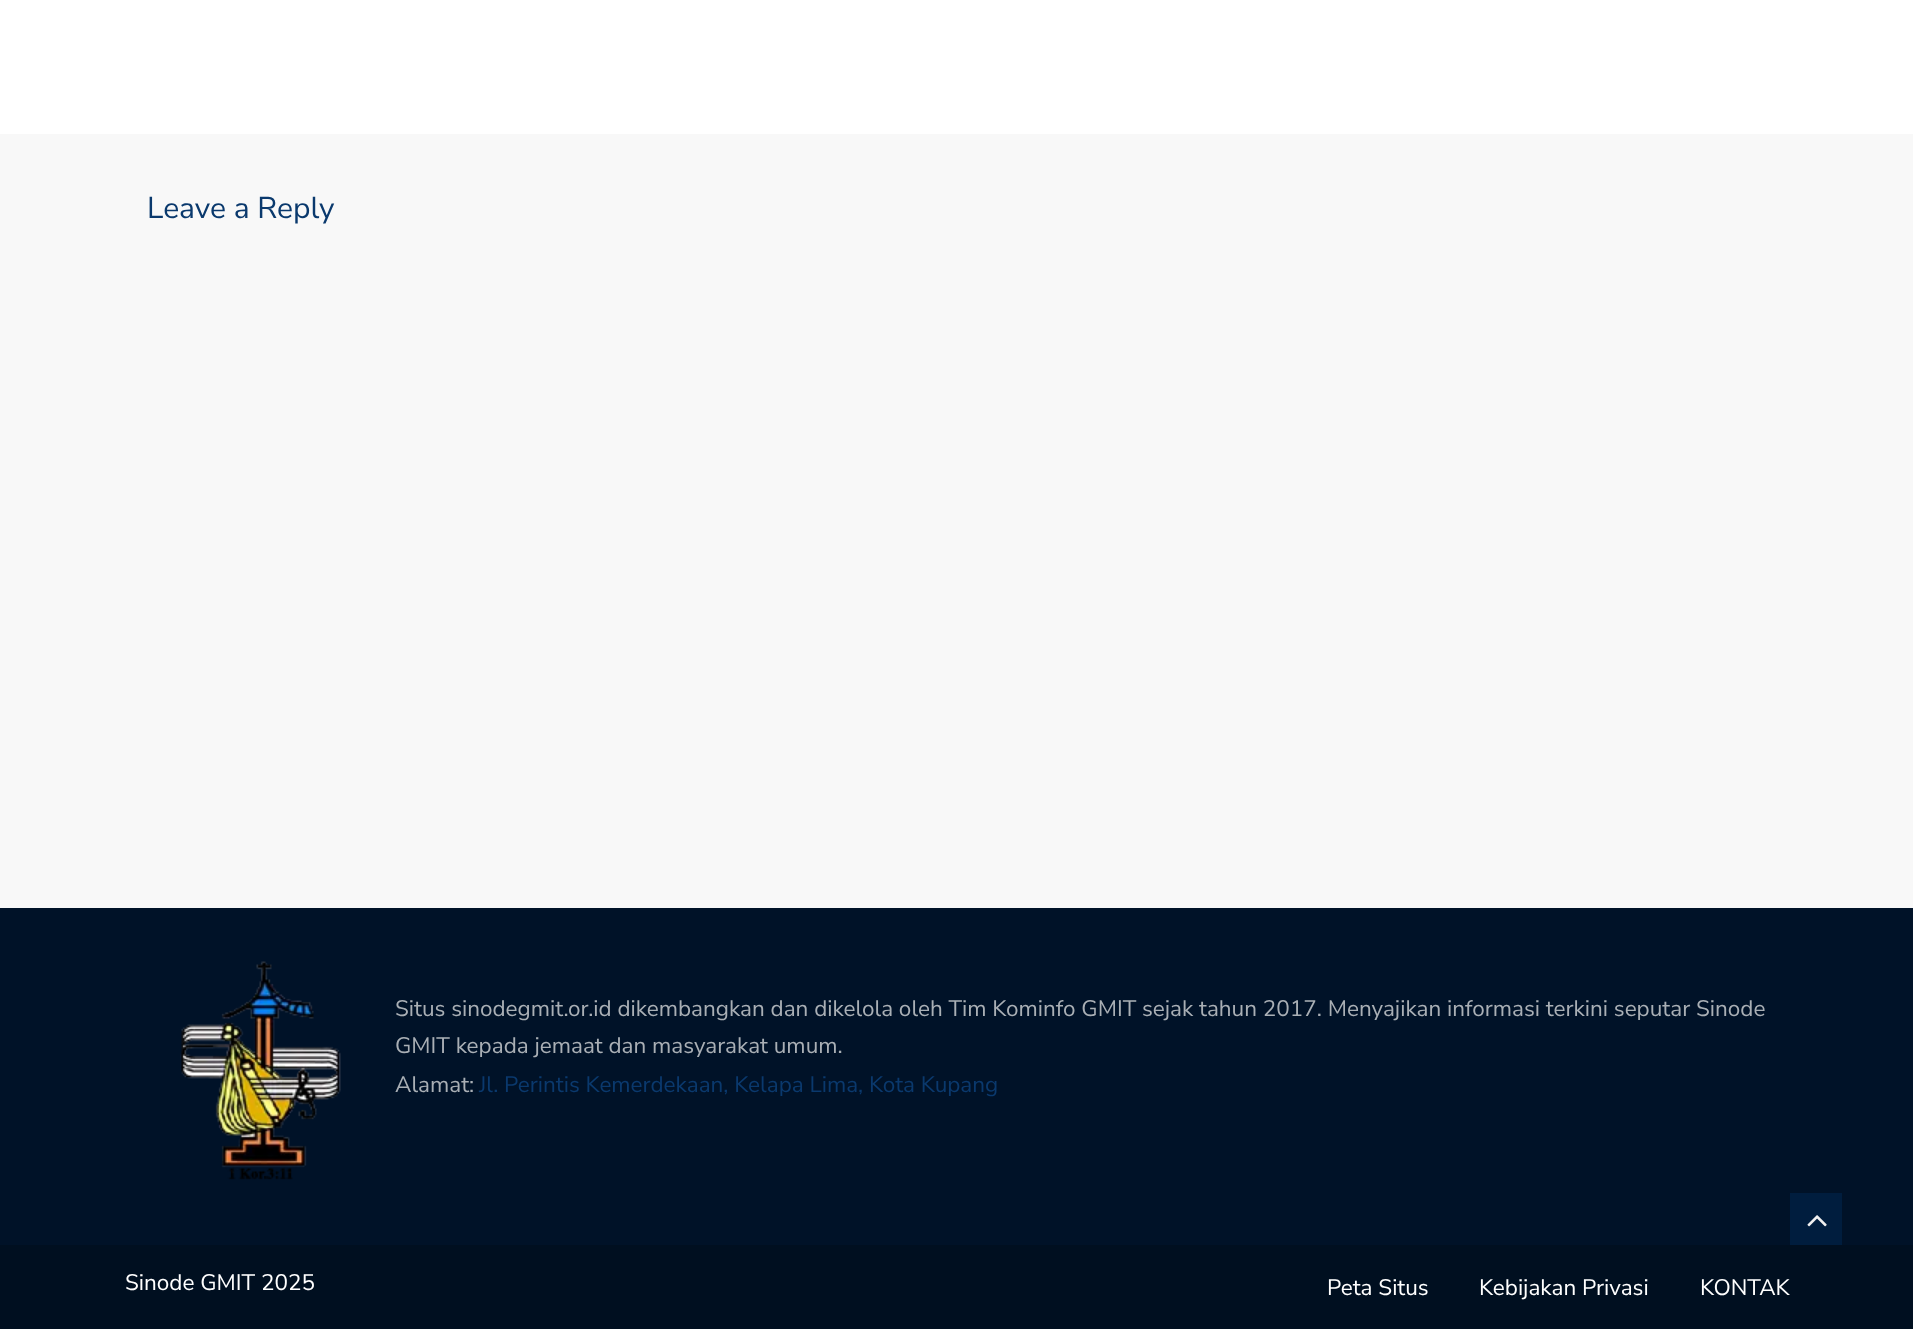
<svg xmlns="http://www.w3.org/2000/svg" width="1913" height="1329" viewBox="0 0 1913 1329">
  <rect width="100%" height="100%" fill="rgb(255,255,255)"/>
  <rect x="0" y="134" width="1913" height="774" fill="rgb(248,248,248)"/>
  <text x="147" y="218" font-family="Nunito Sans" font-size="30" fill="rgb(10,57,109)">Leave a Reply</text>
  <rect x="0" y="908" width="1913" height="337" fill="rgb(0,18,40)"/>
  <image x="180" y="961" width="161" height="219" href="pic1.png"/>
  <g font-family="Nunito Sans" font-size="22.5" fill="rgb(169,175,181)">
    <text>
      <tspan x="395" y="1016">Situs sinodegmit.or.id dikembangkan dan dikelola oleh Tim Kominfo GMIT sejak tahun 2017. Menyajikan informasi terkini seputar Sinode</tspan>
      <tspan x="395" y="1053">GMIT kepada jemaat dan masyarakat umum.</tspan>
      <tspan x="395" y="1092">Alamat:</tspan>
    </text>
  </g>
  <text x="479" y="1092" font-family="Nunito Sans" font-size="22.5" fill="rgb(10,57,109)">Jl. Perintis Kemerdekaan, Kelapa Lima, Kota Kupang</text>
  <rect x="1790" y="1193" width="52" height="52" fill="rgb(0,29,62)"/>
  <image x="1807" y="1215" width="20" height="12" href="pic2.png"/>
  <rect x="0" y="1245" width="1913" height="84" fill="rgb(0,15,32)"/>
  <g font-family="Nunito Sans" font-size="22.5" fill="rgb(255,255,255)">
    <text x="125" y="1290">Sinode GMIT 2025</text>
    <text x="1327" y="1295">Peta Situs</text>
    <text x="1479" y="1295">Kebijakan Privasi</text>
    <text x="1700" y="1295">KONTAK</text>
  </g>
</svg>
